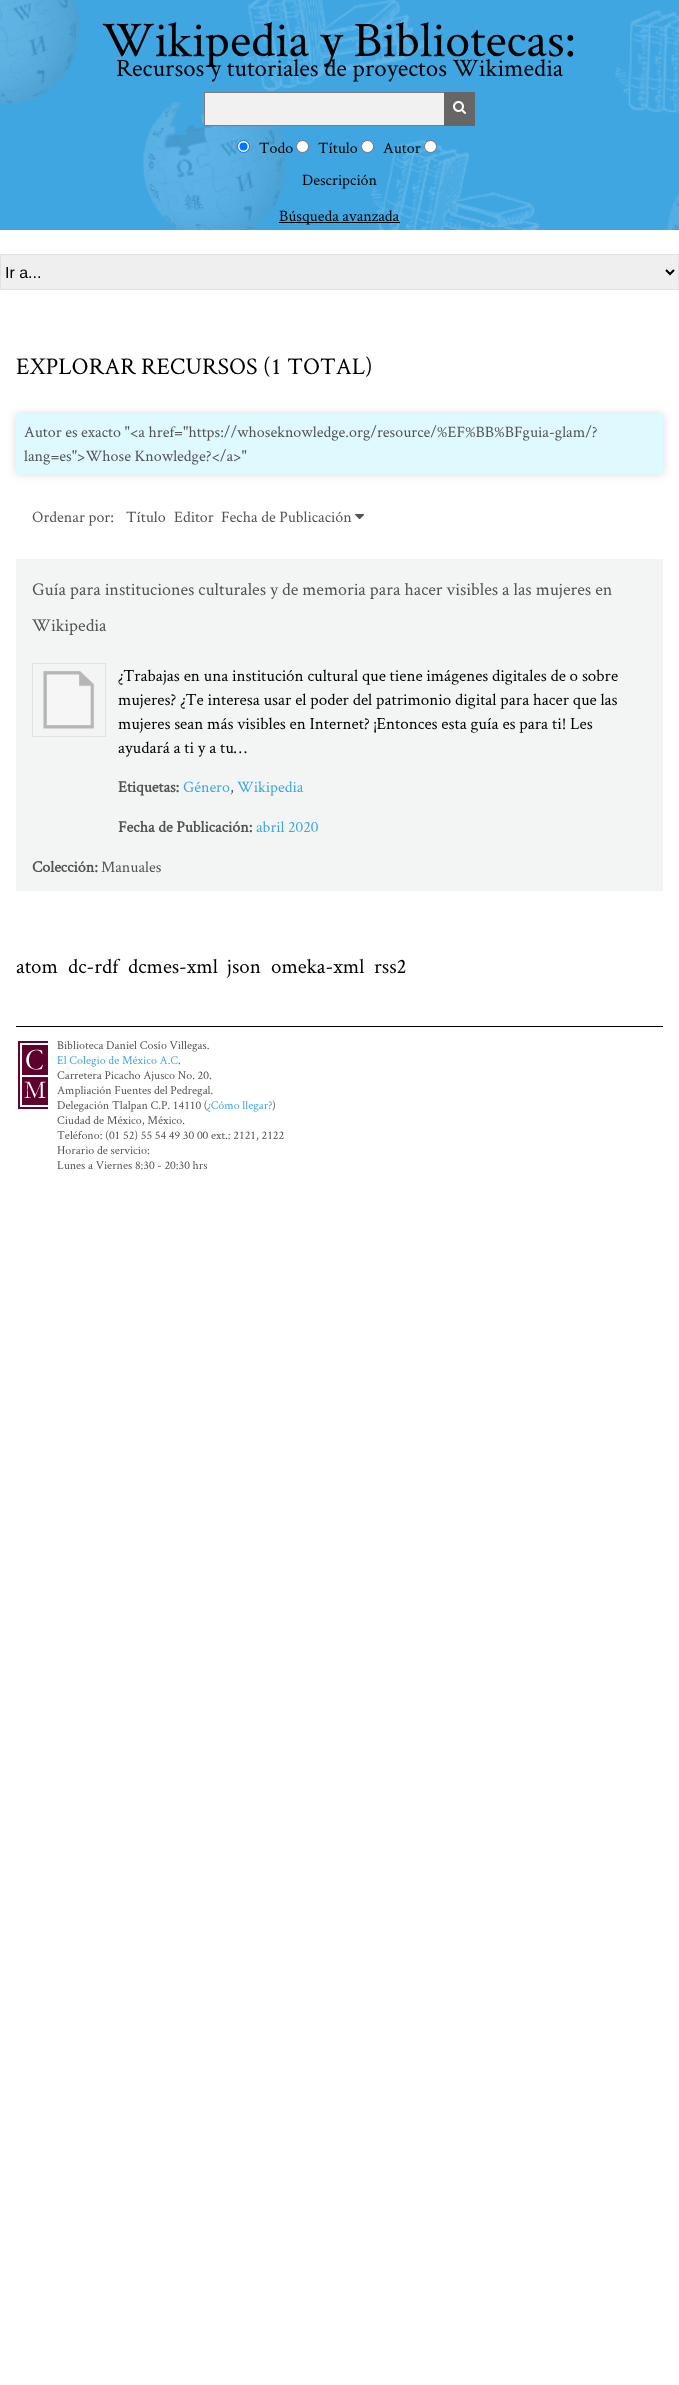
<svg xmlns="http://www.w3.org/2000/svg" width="679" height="2385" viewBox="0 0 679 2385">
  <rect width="100%" height="100%" fill="rgb(255,255,255)"/>
  <image x="0" y="0" width="679" height="230" href="pic1.png"/>
  <text x="102" y="56" font-family="Crimson Text" font-size="50" fill="rgb(0,0,0)">Wikipedia y Bibliotecas:</text>
  <text x="116" y="76" font-family="Crimson Text" font-size="25" fill="rgb(0,0,0)">Recursos y tutoriales de proyectos Wikimedia</text>
  <rect x="205" y="93" width="239" height="32" fill="rgb(241,241,241)"/>
  <rect x="204.5" y="92.5" width="270" height="33" fill="none" stroke="rgb(125,125,125)"/>
  <rect x="444" y="92" width="31" height="34" fill="rgb(102,102,102)"/>
  <image x="453" y="101" width="13" height="13" href="pic2.png"/>
  <circle cx="243.5" cy="146.5" r="6" fill="rgb(255,255,255)" stroke="rgb(0,117,255)"/>
  <circle cx="243.5" cy="146.5" r="4" fill="rgb(0,117,255)"/>
  <text x="259" y="153" font-family="Crimson Text" font-size="16" fill="rgb(0,0,0)">Todo</text>
  <circle cx="302.5" cy="146.5" r="6" fill="rgb(255,255,255)" stroke="rgb(118,118,118)"/>
  <text x="318" y="153" font-family="Crimson Text" font-size="16" fill="rgb(0,0,0)">Título</text>
  <circle cx="367.5" cy="146.5" r="6" fill="rgb(255,255,255)" stroke="rgb(118,118,118)"/>
  <text x="383" y="153" font-family="Crimson Text" font-size="16" fill="rgb(0,0,0)">Autor</text>
  <circle cx="430.5" cy="146.5" r="6" fill="rgb(255,255,255)" stroke="rgb(118,118,118)"/>
  <text x="302" y="185" font-family="Crimson Text" font-size="16" fill="rgb(0,0,0)">Descripción</text>
  <rect x="279" y="222" width="121" height="1" fill="rgb(0,0,0)"/>
  <text x="279" y="221" font-family="Crimson Text" font-size="16" fill="rgb(0,0,0)">Búsqueda avanzada</text>
  <rect x="0.5" y="254.5" width="678" height="35" fill="rgb(239,239,239)" stroke="rgb(223,226,226)"/>
  <path d="M666 270L670 274L674 270" fill="none" stroke="rgb(0,0,0)" stroke-width="2"/>
  <text x="5" y="278" font-family="Liberation Sans" font-size="16" fill="rgb(0,0,0)">Ir a...</text>
  <text x="16" y="374" font-family="Crimson Text" font-size="24" fill="rgb(0,0,0)">EXPLORAR RECURSOS (1 TOTAL)</text>
  <rect x="16" y="414" width="647" height="60" fill="rgba(0,0,0,0.15)" filter="blur(5px)"/>
  <rect x="16" y="414" width="647" height="60" fill="rgb(222,249,255)"/>
  <g font-family="Crimson Text" font-size="16" fill="rgb(84,83,83)">
    <text>
      <tspan x="24" y="437">Autor es exacto "&lt;a href="https://whoseknowledge.org/resource/%EF%BB%BFguia-glam/?</tspan>
      <tspan x="24" y="461">lang=es"&gt;Whose Knowledge?&lt;/a&gt;"</tspan>
    </text>
    <text x="32" y="522">Ordenar por:</text>
    <text x="126" y="522">Título</text>
    <text x="174" y="522">Editor</text>
    <text x="221" y="522">Fecha de Publicación</text>
  </g>
  <image x="355" y="514" width="10" height="6" href="pic3.png"/>
  <rect x="16" y="559" width="647" height="332" fill="rgb(243,245,244)"/>
  <g font-family="Crimson Text" font-size="18" fill="rgb(84,83,83)">
    <text x="32" y="595">Guía para instituciones culturales y de memoria para hacer visibles a las mujeres en</text>
    <text x="32" y="631">Wikipedia</text>
  </g>
  <rect x="32.5" y="663.5" width="73" height="73" fill="none" stroke="rgb(223,226,226)"/>
  <image x="43" y="671" width="52" height="58" href="pic4.png"/>
  <g font-family="Crimson Text" font-size="17" fill="rgb(0,0,0)">
    <text>
      <tspan x="118" y="681">¿Trabajas en una institución cultural que tiene imágenes digitales de o sobre</tspan>
      <tspan x="118" y="705">mujeres? ¿Te interesa usar el poder del patrimonio digital para hacer que las</tspan>
      <tspan x="118" y="729">mujeres sean más visibles en Internet? ¡Entonces esta guía es para ti! Les</tspan>
      <tspan x="118" y="753">ayudará a ti y a tu…</tspan>
    </text>
  </g>
  <text x="118" y="792" font-family="Crimson Text" font-size="16" font-weight="bold" fill="rgb(84,83,83)">Etiquetas:</text>
  <text x="183" y="792" font-family="Crimson Text" font-size="16" fill="rgb(63,166,226)">Género</text>
  <text x="230" y="792" font-family="Crimson Text" font-size="16" fill="rgb(84,83,83)">,</text>
  <text x="237" y="792" font-family="Crimson Text" font-size="16" fill="rgb(63,166,226)">Wikipedia</text>
  <text x="118" y="832" font-family="Crimson Text" font-size="16" font-weight="bold" fill="rgb(84,83,83)">Fecha de Publicación:</text>
  <text x="256" y="832" font-family="Crimson Text" font-size="16" fill="rgb(63,166,226)">abril 2020</text>
  <text x="32" y="872" font-family="Crimson Text" font-size="16" font-weight="bold" fill="rgb(84,83,83)">Colección:</text>
  <text x="101" y="872" font-family="Crimson Text" font-size="16" fill="rgb(84,83,83)">Manuales</text>
  <g font-family="Crimson Text" font-size="21" fill="rgb(0,0,0)">
    <text x="16" y="973">atom</text>
    <text x="68" y="973">dc-rdf</text>
    <text x="128" y="973">dcmes-xml</text>
    <text x="227" y="973">json</text>
    <text x="271" y="973">omeka-xml</text>
    <text x="374" y="973">rss2</text>
  </g>
  <rect x="16" y="1026" width="647" height="1" fill="rgb(0,0,0)"/>
  <image x="18" y="1041" width="30" height="68" href="pic5.png"/>
  <text x="57" y="1049" font-family="Crimson Text" font-size="12" fill="rgb(84,83,83)">Biblioteca Daniel Cosío Villegas.</text>
  <text x="57" y="1064" font-family="Crimson Text" font-size="12" fill="rgb(63,166,226)">El Colegio de México A.C</text>
  <g font-family="Crimson Text" font-size="12" fill="rgb(84,83,83)">
    <text x="178" y="1064">.</text>
    <text>
      <tspan x="57" y="1079">Carretera Picacho Ajusco No. 20.</tspan>
      <tspan x="57" y="1094">Ampliación Fuentes del Pedregal.</tspan>
      <tspan x="57" y="1109">Delegación Tlalpan C.P. 14110 (</tspan>
    </text>
  </g>
  <text x="207" y="1109" font-family="Crimson Text" font-size="12" fill="rgb(63,166,226)">¿Cómo llegar?</text>
  <g font-family="Crimson Text" font-size="12" fill="rgb(84,83,83)">
    <text x="272" y="1109">)</text>
    <text>
      <tspan x="57" y="1124">Ciudad de México, México.</tspan>
      <tspan x="57" y="1139">Teléfono: (01 52) 55 54 49 30 00 ext.: 2121, 2122</tspan>
      <tspan x="57" y="1154">Horario de servicio:</tspan>
      <tspan x="57" y="1169">Lunes a Viernes 8:30 - 20:30 hrs</tspan>
    </text>
  </g>
</svg>
